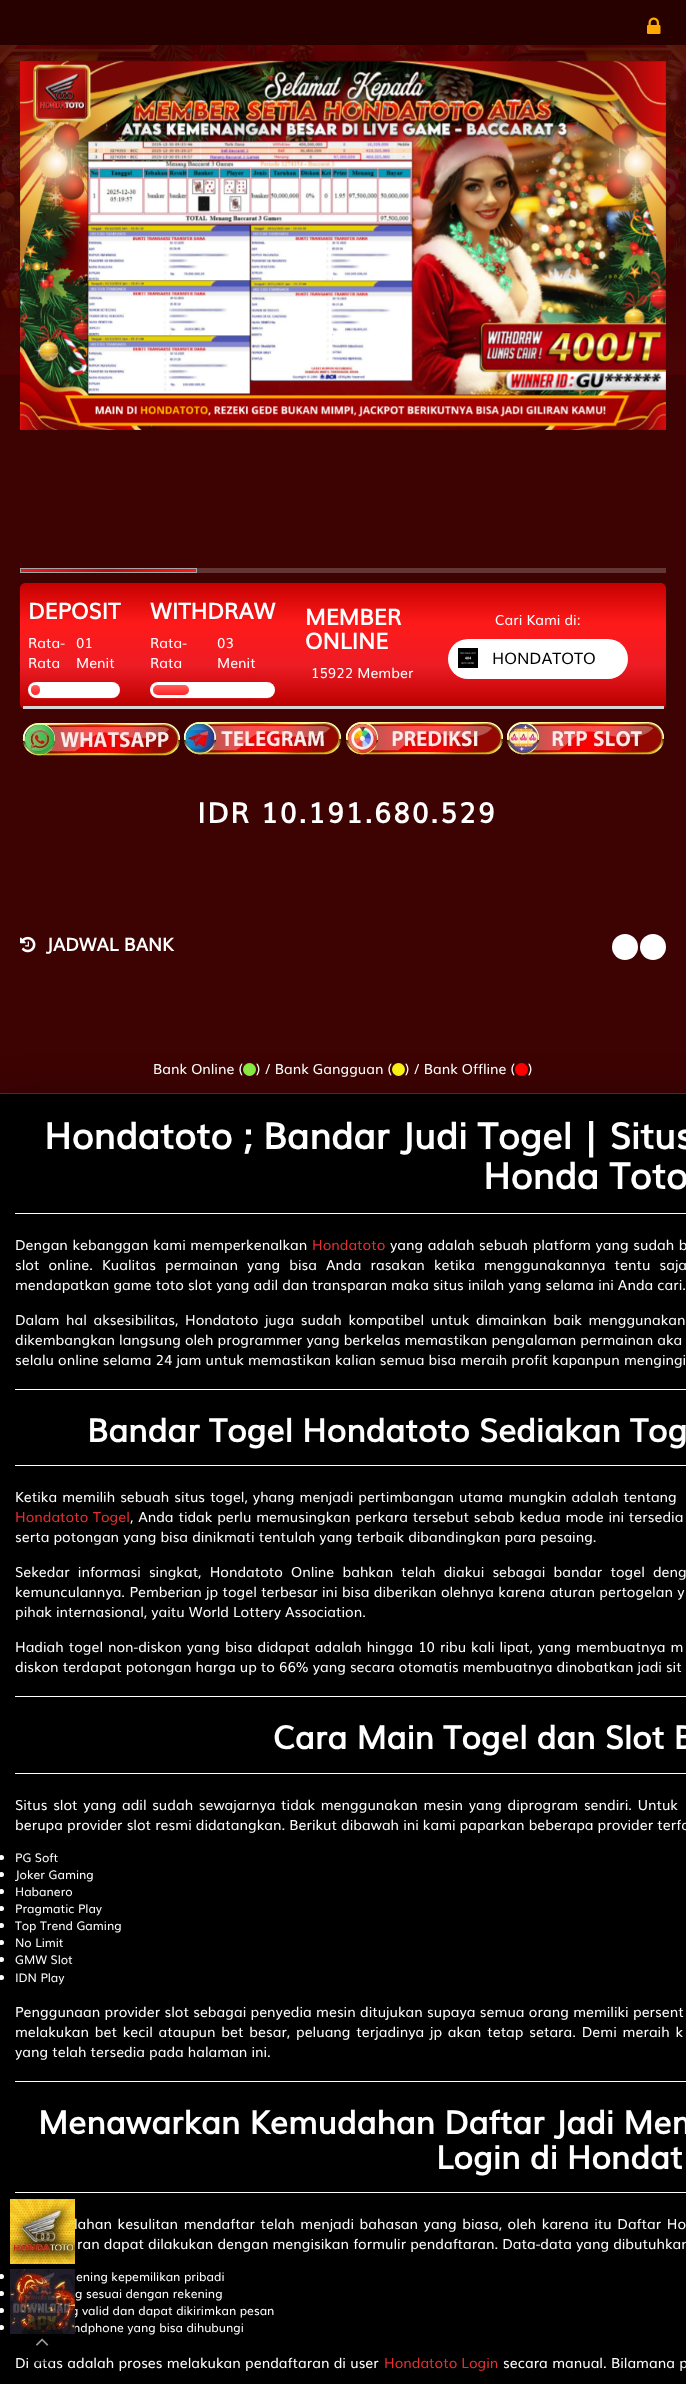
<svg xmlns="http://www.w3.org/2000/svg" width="686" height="2384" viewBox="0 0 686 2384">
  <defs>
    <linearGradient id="g1" gradientUnits="userSpaceOnUse" x1="86" y1="531" x2="131" y2="610"><stop offset="0" stop-color="rgb(237,28,36)"/><stop offset="0.5" stop-color="rgb(189,10,10)"/><stop offset="1" stop-color="rgb(255,26,26)"/></linearGradient>
    <clipPath id="clip1"><rect x="20" y="583" width="646" height="126" rx="5"/></clipPath>
    <linearGradient id="g2" gradientUnits="userSpaceOnUse" x1="343" y1="583" x2="343" y2="706"><stop offset="0" stop-color="rgb(197,0,0)"/><stop offset="0.33" stop-color="rgb(255,26,26)"/><stop offset="0.67" stop-color="rgb(237,28,36)"/><stop offset="1" stop-color="rgb(187,0,0)"/></linearGradient>
    <linearGradient id="g3" gradientUnits="userSpaceOnUse" x1="343" y1="706" x2="343" y2="829"><stop offset="0" stop-color="rgb(197,0,0)"/><stop offset="0.33" stop-color="rgb(255,26,26)"/><stop offset="0.67" stop-color="rgb(237,28,36)"/><stop offset="1" stop-color="rgb(187,0,0)"/></linearGradient>
    <linearGradient id="g4" gradientUnits="userSpaceOnUse" x1="36" y1="685" x2="36" y2="695"><stop offset="0" stop-color="rgb(255,255,255)" stop-opacity="0.3"/><stop offset="1" stop-color="rgb(255,255,255)" stop-opacity="0.05"/></linearGradient>
    <linearGradient id="g5" gradientUnits="userSpaceOnUse" x1="171" y1="685" x2="171" y2="695"><stop offset="0" stop-color="rgb(255,255,255)" stop-opacity="0.3"/><stop offset="1" stop-color="rgb(255,255,255)" stop-opacity="0.05"/></linearGradient>
  </defs>
  <rect width="100%" height="100%" fill="rgb(61,3,3)"/>
  <image x="0" y="45" width="686" height="330" href="pic1.png"/>
  <rect x="0" y="0" width="686" height="45" fill="rgb(39,0,0)"/>
  <image x="647" y="17" width="14" height="17" href="pic2.png"/>
  <image x="20" y="60" width="646" height="370" href="pic3.png"/>
  <rect x="197" y="568" width="469" height="5" fill="rgb(100,53,53)"/>
  <rect x="21" y="569" width="175" height="3" fill="url(#g1)"/>
  <rect x="20.5" y="568.5" width="176" height="4" fill="none" stroke="rgb(165,165,165)"/>
  <g clip-path="url(#clip1)">
    <path d="M25 583H661C664 583 666 585 666 588V706H20V588C20 585 22 583 25 583Z" fill="url(#g2)"/>
    <rect x="20" y="706" width="646" height="3" fill="url(#g3)"/>
  </g>
  <rect x="23" y="706" width="641" height="3" fill="rgb(214,214,214)"/>
  <text x="28" y="619" font-family="Muli" font-size="22" font-weight="bold" fill="rgb(255,255,255)">DEPOSIT</text>
  <g font-family="Muli" font-size="14" fill="rgb(255,255,255)">
    <text>
      <tspan x="28" y="648">Rata-</tspan>
      <tspan x="28" y="668">Rata</tspan>
    </text>
    <text>
      <tspan x="76" y="648">01</tspan>
      <tspan x="76" y="668">Menit</tspan>
    </text>
  </g>
  <path d="M28 690C27 702 43 699 49 699H99C105 699 121 702 120 690C120 695 116 698 112 698H36C32 698 28 695 28 690Z" fill="rgba(255,255,255,0.08)"/>
  <rect x="28" y="682" width="92" height="16" rx="8" fill="rgb(255,255,255)"/>
  <rect x="31" y="685" width="9" height="10" rx="4.5" fill="rgb(255,26,26)"/>
  <rect x="31" y="685" width="9" height="10" rx="4.5" fill="url(#g4)"/>
  <text x="150" y="619" font-family="Muli" font-size="22" font-weight="bold" fill="rgb(255,255,255)">WITHDRAW</text>
  <g font-family="Muli" font-size="14" fill="rgb(255,255,255)">
    <text>
      <tspan x="150" y="648">Rata-</tspan>
      <tspan x="150" y="668">Rata</tspan>
    </text>
    <text>
      <tspan x="217" y="648">03</tspan>
      <tspan x="217" y="668">Menit</tspan>
    </text>
  </g>
  <path d="M150 690C149 703 171 699 176 699H249C254 699 276 703 275 690C275 695 271 698 267 698H158C154 698 150 695 150 690Z" fill="rgb(201,25,27)"/>
  <rect x="150" y="682" width="125" height="16" rx="8" fill="rgb(255,255,255)"/>
  <rect x="153" y="685" width="36" height="10" rx="5" fill="rgb(255,26,26)"/>
  <rect x="153" y="685" width="36" height="10" rx="5" fill="url(#g5)"/>
  <g font-family="Muli" font-size="22" font-weight="bold" fill="rgb(255,255,255)">
    <text>
      <tspan x="305" y="625">MEMBER</tspan>
      <tspan x="305" y="649">ONLINE</tspan>
    </text>
  </g>
  <g font-family="Muli" font-size="14" fill="rgb(255,255,255)">
    <text x="311" y="678">15922 Member</text>
    <text x="495" y="625">Cari Kami di:</text>
  </g>
  <rect x="448" y="639" width="180" height="40" rx="20" fill="rgb(255,255,255)"/>
  <image x="458" y="648" width="20" height="20" href="pic4.png"/>
  <text x="492" y="664" font-family="Muli" font-size="16" fill="rgb(0,0,0)">HONDATOTO</text>
  <image x="22" y="723" width="158" height="33" href="pic5.png"/>
  <image x="184" y="722" width="157" height="33" href="pic6.png"/>
  <image x="346" y="722" width="157" height="33" href="pic7.png"/>
  <image x="507" y="722" width="157" height="33" href="pic8.png"/>
  <text x="197" y="823" font-family="Muli" font-size="28" font-weight="bold" letter-spacing="2" fill="rgb(255,255,255)">IDR 10.191.680.529</text>
  <rect x="2" y="1127" width="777" height="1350" fill="rgba(0,0,0,0.9)" filter="blur(31px)"/>
  <rect x="0" y="1094" width="686" height="1290" fill="rgb(0,0,0)"/>
  <image x="10" y="2199" width="65" height="65" href="pic9.png"/>
  <g font-family="Muli" font-size="12" fill="rgb(255,255,255)">
    <text x="71" y="2315">g valid dan dapat dikirimkan pesan</text>
    <text x="73" y="2332">ndphone yang bisa dihubungi</text>
  </g>
  <image x="10" y="2269" width="65" height="65" href="pic10.png"/>
  <image x="20" y="936" width="16" height="17" href="pic11.png"/>
  <text x="46" y="951" font-family="Muli" font-size="18" font-weight="bold" fill="rgb(255,255,255)">JADWAL BANK</text>
  <circle cx="625" cy="947" r="13" fill="rgb(255,255,255)"/>
  <circle cx="653" cy="947" r="13" fill="rgb(255,255,255)"/>
  <text x="153" y="1074" font-family="Muli" font-size="14" fill="rgb(255,255,255)">Bank Online (</text>
  <circle cx="249.5" cy="1069.5" r="6.5" fill="rgb(137,231,69)"/>
  <text x="256" y="1074" font-family="Muli" font-size="14" fill="rgb(255,255,255)">) / Bank Gangguan (</text>
  <circle cx="398.5" cy="1069.5" r="6.5" fill="rgb(247,240,20)"/>
  <text x="405" y="1074" font-family="Muli" font-size="14" fill="rgb(255,255,255)">) / Bank Offline (</text>
  <circle cx="521.5" cy="1069.5" r="6.5" fill="rgb(255,0,0)"/>
  <text x="528" y="1074" font-family="Muli" font-size="14" fill="rgb(255,255,255)">)</text>
  <rect x="0" y="1093" width="686" height="1" fill="rgb(170,0,0)"/>
  <g font-family="Muli" font-size="36" font-weight="bold" fill="rgb(255,255,255)">
    <text x="44" y="1149">Hondatoto ; Bandar Judi Togel | Situs</text>
    <text x="483" y="1189">Honda Toto</text>
  </g>
  <rect x="15" y="1213" width="671" height="1" fill="rgb(255,255,255)"/>
  <text x="15" y="1250" word-spacing="0.5" font-family="Muli" font-size="14" fill="rgb(255,255,255)">Dengan kebanggan kami memperkenalkan</text>
  <text x="312" y="1250" font-family="Muli" font-size="14" fill="rgb(228,48,47)">Hondatoto</text>
  <g font-family="Muli" font-size="14" fill="rgb(255,255,255)">
    <text x="390" y="1250" word-spacing="0.5">yang adalah sebuah platform yang sudah b</text>
    <text>
      <tspan x="15" y="1270" word-spacing="5">slot online. Kualitas permainan yang bisa Anda rasakan ketika menggunakannya tentu saja</tspan>
      <tspan x="15" y="1290">mendapatkan game toto slot yang adil dan transparan maka situs inilah yang selama ini Anda cari.</tspan>
    </text>
    <text>
      <tspan x="15" y="1325" word-spacing="2.6">Dalam hal aksesibilitas, Hondatoto juga sudah kompatibel untuk dimainkan baik menggunakan</tspan>
      <tspan x="15" y="1345">dikembangkan langsung oleh programmer yang berkelas memastikan pengalaman permainan aka</tspan>
      <tspan x="15" y="1365">selalu online selama 24 jam untuk memastikan kalian semua bisa meraih profit kapanpun mengingi</tspan>
    </text>
  </g>
  <rect x="15" y="1389" width="671" height="1" fill="rgb(255,255,255)"/>
  <text x="87" y="1442" font-family="Muli" font-size="32" font-weight="bold" fill="rgb(255,255,255)">Bandar Togel Hondatoto Sediakan Tog</text>
  <rect x="15" y="1465" width="671" height="1" fill="rgb(255,255,255)"/>
  <text x="15" y="1502" word-spacing="1" font-family="Muli" font-size="14" fill="rgb(255,255,255)">Ketika memilih sebuah situs togel, yhang menjadi pertimbangan utama mungkin adalah tentang</text>
  <text x="15" y="1522" word-spacing="0.75" font-family="Muli" font-size="14" fill="rgb(228,48,47)">Hondatoto Togel</text>
  <g font-family="Muli" font-size="14" fill="rgb(255,255,255)">
    <text x="130" y="1522" word-spacing="0.75">, Anda tidak perlu memusingkan perkara tersebut sebab kedua mode ini tersedia</text>
    <text x="15" y="1542">serta potongan yang bisa dinikmati tentulah yang terbaik dibandingkan para pesaing.</text>
    <text>
      <tspan x="15" y="1577" word-spacing="4.1">Sekedar informasi singkat, Hondatoto Online bahkan telah diakui sebagai bandar togel deng</tspan>
      <tspan x="15" y="1597" word-spacing="0.25">kemunculannya. Pemberian jp togel terbesar ini bisa diberikan olehnya karena aturan pertogelan y</tspan>
      <tspan x="15" y="1617">pihak internasional, yaitu World Lottery Association.</tspan>
    </text>
    <text>
      <tspan x="15" y="1652" word-spacing="0.9">Hadiah togel non-diskon yang bisa didapat adalah hingga 10 ribu kali lipat, yang membuatnya m</tspan>
      <tspan x="15" y="1672">diskon terdapat potongan harga up to 66% yang secara otomatis membuatnya dinobatkan jadi sit</tspan>
    </text>
  </g>
  <rect x="15" y="1696" width="671" height="1" fill="rgb(255,255,255)"/>
  <text x="273" y="1749" font-family="Muli" font-size="32" font-weight="bold" fill="rgb(255,255,255)">Cara Main Togel dan Slot B</text>
  <rect x="15" y="1773" width="671" height="1" fill="rgb(255,255,255)"/>
  <g font-family="Muli" font-size="14" fill="rgb(255,255,255)">
    <text>
      <tspan x="15" y="1810" word-spacing="1.6">Situs slot yang adil sudah sewajarnya tidak menggunakan mesin yang diprogram sendiri. Untuk</tspan>
      <tspan x="15" y="1830">berupa provider slot resmi didatangkan. Berikut dibawah ini kami paparkan beberapa provider terfa</tspan>
    </text>
  </g>
  <circle cx="1.5" cy="1857.5" r="2.5" fill="rgb(255,255,255)"/>
  <text x="15" y="1862" font-family="Muli" font-size="12" fill="rgb(255,255,255)">PG Soft</text>
  <circle cx="1.5" cy="1874.5" r="2.5" fill="rgb(255,255,255)"/>
  <text x="15" y="1879" font-family="Muli" font-size="12" fill="rgb(255,255,255)">Joker Gaming</text>
  <circle cx="1.5" cy="1891.5" r="2.5" fill="rgb(255,255,255)"/>
  <text x="15" y="1896" font-family="Muli" font-size="12" fill="rgb(255,255,255)">Habanero</text>
  <circle cx="1.5" cy="1908.5" r="2.5" fill="rgb(255,255,255)"/>
  <text x="15" y="1913" font-family="Muli" font-size="12" fill="rgb(255,255,255)">Pragmatic Play</text>
  <circle cx="1.5" cy="1925.5" r="2.5" fill="rgb(255,255,255)"/>
  <text x="15" y="1930" font-family="Muli" font-size="12" fill="rgb(255,255,255)">Top Trend Gaming</text>
  <circle cx="1.5" cy="1942.5" r="2.5" fill="rgb(255,255,255)"/>
  <text x="15" y="1947" font-family="Muli" font-size="12" fill="rgb(255,255,255)">No Limit</text>
  <circle cx="1.5" cy="1959.5" r="2.5" fill="rgb(255,255,255)"/>
  <text x="15" y="1964" font-family="Muli" font-size="12" fill="rgb(255,255,255)">GMW Slot</text>
  <circle cx="1.5" cy="1977.5" r="2.5" fill="rgb(255,255,255)"/>
  <text x="15" y="1982" font-family="Muli" font-size="12" fill="rgb(255,255,255)">IDN Play</text>
  <g font-family="Muli" font-size="14" fill="rgb(255,255,255)">
    <text>
      <tspan x="15" y="2017" word-spacing="0.25">Penggunaan provider slot sebagai penyedia mesin ditujukan supaya semua orang memiliki persent</tspan>
      <tspan x="15" y="2037" word-spacing="1.75">melakukan bet kecil ataupun bet besar, peluang terjadinya jp akan tetap setara. Demi meraih k</tspan>
      <tspan x="15" y="2057">yang telah tersedia pada halaman ini.</tspan>
    </text>
  </g>
  <rect x="15" y="2081" width="671" height="1" fill="rgb(255,255,255)"/>
  <g font-family="Muli" font-size="32" font-weight="bold" fill="rgb(255,255,255)">
    <text x="38" y="2134">Menawarkan Kemudahan Daftar Jadi Mem</text>
    <text x="436" y="2169">Login di Hondat</text>
  </g>
  <rect x="15" y="2192" width="671" height="1" fill="rgb(255,255,255)"/>
  <g font-family="Muli" font-size="14" fill="rgb(255,255,255)">
    <text x="74" y="2229" word-spacing="1.5">lahan kesulitan mendaftar telah menjadi bahasan yang biasa, oleh karena itu Daftar Ho</text>
    <text x="77" y="2249">ran dapat dilakukan dengan mengisikan formulir pendaftaran. Data-data yang dibutuhkan</text>
  </g>
  <circle cx="1.5" cy="2276.5" r="2.5" fill="rgb(255,255,255)"/>
  <text x="76" y="2281" font-family="Muli" font-size="12" fill="rgb(255,255,255)">ening kepemilikan pribadi</text>
  <circle cx="1.5" cy="2293.5" r="2.5" fill="rgb(255,255,255)"/>
  <text x="75" y="2298" font-family="Muli" font-size="12" fill="rgb(255,255,255)">g sesuai dengan rekening</text>
  <circle cx="1.5" cy="2310.5" r="2.5" fill="rgb(255,255,255)"/>
  <circle cx="1.5" cy="2327.5" r="2.5" fill="rgb(255,255,255)"/>
  <text x="15" y="2368" word-spacing="0.25" font-family="Muli" font-size="14" fill="rgb(255,255,255)">Di atas adalah proses melakukan pendaftaran di user</text>
  <text x="384" y="2368" font-family="Muli" font-size="14" fill="rgb(228,48,47)">Hondatoto Login</text>
  <text x="503" y="2368" word-spacing="0.25" font-family="Muli" font-size="14" fill="rgb(255,255,255)">secara manual. Bilamana p</text>
  <circle cx="42.5" cy="2341.5" r="22.5" fill="rgba(0,0,0,0.4)"/>
  <image x="36" y="2338" width="13" height="8" href="pic12.png"/>
</svg>
